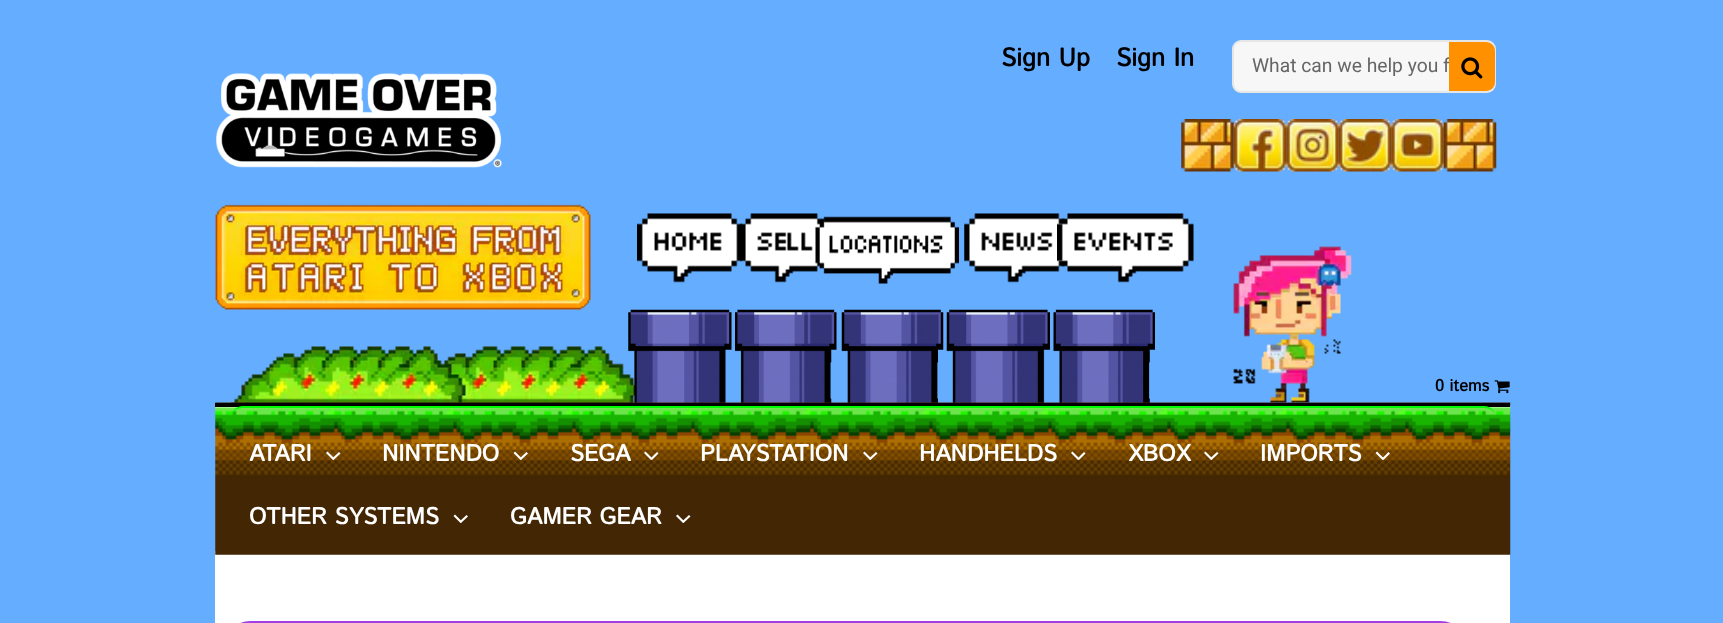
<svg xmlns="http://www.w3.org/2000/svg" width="1723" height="623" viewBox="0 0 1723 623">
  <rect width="100%" height="100%" fill="rgb(101,173,255)"/>
  <image x="216" y="73" width="286" height="95" href="pic1.png"/>
  <image x="215" y="204" width="376" height="106" href="pic2.png"/>
  <image x="231" y="346" width="404" height="57" href="pic3.png"/>
  <g font-family="Istok Web" font-size="25.5" font-weight="bold" fill="rgb(0,0,0)">
    <text x="1001" y="66">Sign Up</text>
    <text x="1116" y="66">Sign In</text>
  </g>
  <image x="637" y="213" width="105" height="70" href="pic4.png"/>
  <image x="628" y="309" width="104" height="94" href="pic5.png"/>
  <image x="740" y="213" width="85" height="70" href="pic6.png"/>
  <image x="830" y="349" width="2" height="54" href="pic8.png"/>
  <image x="735" y="309" width="102" height="94" href="pic7.png"/>
  <image x="815" y="216" width="144" height="68" href="pic9.png"/>
  <image x="937" y="349" width="1" height="54" href="pic11.png"/>
  <image x="841" y="309" width="103" height="94" href="pic10.png"/>
  <image x="964" y="213" width="101" height="70" href="pic12.png"/>
  <image x="946" y="309" width="104" height="94" href="pic13.png"/>
  <image x="1057" y="213" width="137" height="70" href="pic14.png"/>
  <image x="1149" y="349" width="1" height="54" href="pic16.png"/>
  <image x="1053" y="309" width="102" height="94" href="pic15.png"/>
  <rect x="1233" y="41" width="262" height="51" rx="8" fill="rgb(247,247,247)" stroke="rgb(230,230,230)" stroke-width="2"/>
  <text x="1252" y="72" font-family="Roboto" font-size="19.25" fill="rgb(102,102,102)">What can we help you f</text>
  <path d="M1449 42H1486C1491 42 1495 46 1495 51V82C1495 87 1491 91 1486 91H1449Z" fill="rgb(255,144,0)"/>
  <image x="1461" y="57" width="22" height="22" href="pic17.png"/>
  <image x="1181" y="119" width="53" height="53" href="pic18.png"/>
  <image x="1233" y="119" width="54" height="53" href="pic19.png"/>
  <image x="1286" y="119" width="53" height="53" href="pic20.png"/>
  <image x="1338" y="119" width="54" height="53" href="pic21.png"/>
  <image x="1391" y="119" width="53" height="53" href="pic22.png"/>
  <image x="1443" y="119" width="54" height="53" href="pic23.png"/>
  <image x="1233" y="246" width="119" height="157" href="pic24.png"/>
  <text x="1435" y="391" font-family="Istok Web" font-size="16.5" font-weight="bold" fill="rgb(0,0,0)">0 items</text>
  <image x="1494" y="380" width="16" height="14" href="pic25.png"/>
  <rect x="215" y="551" width="1295" height="72" fill="rgb(255,255,255)"/>
  <image x="215" y="402" width="1296" height="153" href="pic26.png"/>
  <rect x="215" y="403" width="1295" height="4" fill="rgb(0,0,0)"/>
  <path d="M243 406C236 406 231 411 231 418C231 412 236 408 243 408H1484C1491 408 1496 412 1496 418C1496 411 1491 406 1484 406Z" fill="rgb(0,255,0)"/>
  <text x="249" y="461" font-family="Istok Web" font-size="23.25" font-weight="bold" fill="rgb(255,255,255)">ATARI</text>
  <path d="M339 452L340.5 453.5L333.5 460L332 458.5Z" fill="rgb(255,255,255)"/>
  <path d="M327.5 451.5L334.5 458.5L333 460L326 453Z" fill="rgb(255,255,255)"/>
  <text x="382" y="461" font-family="Istok Web" font-size="23.25" font-weight="bold" fill="rgb(255,255,255)">NINTENDO</text>
  <path d="M526.5 452L528 453.5L521 460L519.5 458.5Z" fill="rgb(255,255,255)"/>
  <path d="M515 451.5L522 458.5L520.5 460L513.5 453Z" fill="rgb(255,255,255)"/>
  <text x="570" y="461" font-family="Istok Web" font-size="23.25" font-weight="bold" fill="rgb(255,255,255)">SEGA</text>
  <path d="M657 452L658.5 453.5L652 460L650.5 458.5Z" fill="rgb(255,255,255)"/>
  <path d="M645.5 451.5L652.5 458.5L651 460L644 453Z" fill="rgb(255,255,255)"/>
  <text x="700" y="461" font-family="Istok Web" font-size="23.25" font-weight="bold" fill="rgb(255,255,255)">PLAYSTATION</text>
  <path d="M876 452L877.5 453.5L870.5 460L869 458.5Z" fill="rgb(255,255,255)"/>
  <path d="M864.5 451.5L871.5 458.5L870 460L863 453Z" fill="rgb(255,255,255)"/>
  <text x="919" y="461" font-family="Istok Web" font-size="23.25" font-weight="bold" fill="rgb(255,255,255)">HANDHELDS</text>
  <path d="M1084 452L1085.5 453.5L1079 460L1077.5 458.5Z" fill="rgb(255,255,255)"/>
  <path d="M1072.5 451.5L1079.5 458.5L1078 460L1071 453Z" fill="rgb(255,255,255)"/>
  <text x="1128" y="461" font-family="Istok Web" font-size="23.25" font-weight="bold" fill="rgb(255,255,255)">XBOX</text>
  <path d="M1217 452L1218.5 453.5L1211.5 460L1210 458.5Z" fill="rgb(255,255,255)"/>
  <path d="M1205.5 451.5L1212.5 458.5L1211 460L1204 453Z" fill="rgb(255,255,255)"/>
  <text x="1260" y="461" font-family="Istok Web" font-size="23.25" font-weight="bold" fill="rgb(255,255,255)">IMPORTS</text>
  <path d="M1388.5 452L1390 453.5L1383.5 460L1382 458.5Z" fill="rgb(255,255,255)"/>
  <path d="M1377 451.5L1384 458.5L1382.5 460L1375.5 453Z" fill="rgb(255,255,255)"/>
  <text x="249" y="524" font-family="Istok Web" font-size="23.25" font-weight="bold" fill="rgb(255,255,255)">OTHER SYSTEMS</text>
  <path d="M466.5 515L468 516.5L461 523L459.5 521.5Z" fill="rgb(255,255,255)"/>
  <path d="M455 514.5L462 521.5L460.5 523L453.5 516Z" fill="rgb(255,255,255)"/>
  <text x="510" y="524" font-family="Istok Web" font-size="23.25" font-weight="bold" fill="rgb(255,255,255)">GAMER GEAR</text>
  <path d="M689 515L690.5 516.5L683.5 523L682 521.5Z" fill="rgb(255,255,255)"/>
  <path d="M677.5 514.5L684.5 521.5L683 523L676 516Z" fill="rgb(255,255,255)"/>
  <rect x="233" y="621" width="1225" height="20" rx="18" fill="rgb(163,62,228)"/>
</svg>
